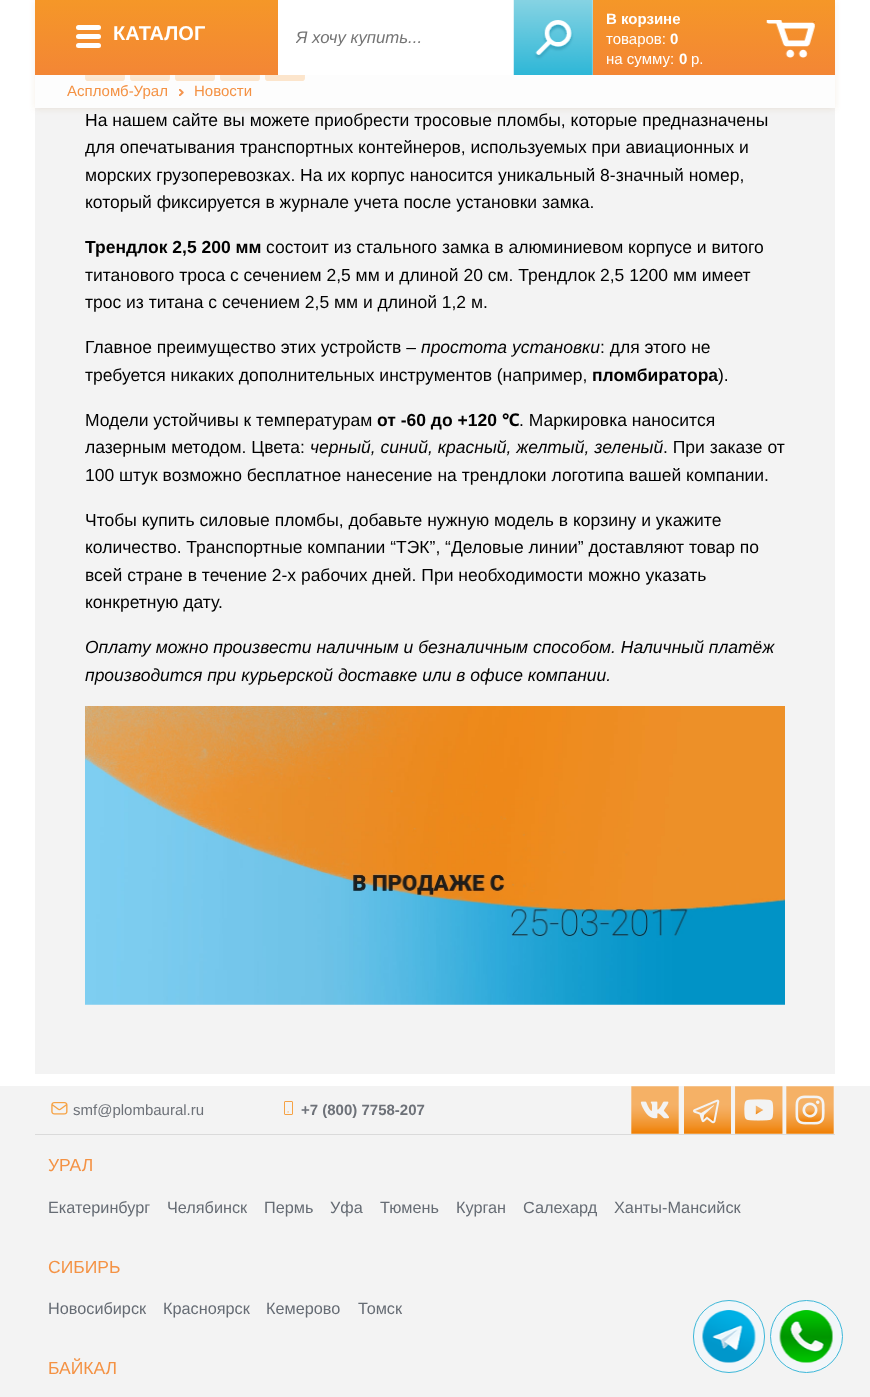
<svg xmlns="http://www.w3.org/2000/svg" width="870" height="1397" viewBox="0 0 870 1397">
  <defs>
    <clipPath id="clip1"><path d="M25 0H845V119H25ZM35 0H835V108H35Z" clip-rule="evenodd"/></clipPath>
    <linearGradient id="g1" gradientUnits="userSpaceOnUse" x1="435" y1="0" x2="435" y2="75"><stop offset="0" stop-color="rgb(245,151,40)"/><stop offset="1" stop-color="rgb(243,134,53)"/></linearGradient>
    <clipPath id="clip2"><rect x="296" y="28" width="268" height="18"/></clipPath>
  </defs>
  <rect width="100%" height="100%" fill="rgb(255,255,255)"/>
  <rect x="35" y="75" width="800" height="999" fill="rgb(243,243,243)"/>
  <image x="85" y="75" width="40" height="6" href="pic4.png"/>
  <image x="130" y="75" width="40" height="6" href="pic4.png"/>
  <image x="175" y="75" width="40" height="6" href="pic4.png"/>
  <image x="220" y="75" width="40" height="6" href="pic4.png"/>
  <image x="265" y="75" width="40" height="6" href="pic5.png"/>
  <g clip-path="url(#clip1)">
    <rect x="35" y="1" width="800" height="108" fill="rgba(150,78,0,0.1)" filter="blur(3px)"/>
  </g>
  <rect x="35" y="75" width="800" height="33" fill="rgba(255,255,255,0.8)"/>
  <rect x="35" y="0" width="800" height="75" fill="url(#g1)"/>
  <rect x="76" y="25" width="25" height="5" rx="2.5" fill="rgb(255,255,255)"/>
  <rect x="76" y="34" width="25" height="5" rx="2.5" fill="rgb(255,255,255)"/>
  <rect x="76" y="43" width="25" height="5" rx="2.5" fill="rgb(255,255,255)"/>
  <text x="113" y="40" font-family="Liberation Sans" font-size="20" font-weight="bold" fill="rgb(255,255,255)">КАТАЛОГ</text>
  <rect x="278" y="0" width="236" height="75" fill="rgb(255,255,255)"/>
  <g clip-path="url(#clip2)">
    <text x="296" y="43" font-family="Liberation Sans" font-size="16.75" font-style="italic" fill="rgb(117,117,117)">Я хочу купить...</text>
  </g>
  <rect x="591" y="0" width="2" height="75" fill="rgb(239,239,239)"/>
  <image x="513" y="0" width="80" height="75" href="pic1.png"/>
  <text x="606" y="24" font-family="Liberation Sans" font-size="15" font-weight="bold" fill="rgb(255,255,255)">В корзине</text>
  <image x="766" y="20" width="49" height="38" href="pic2.png"/>
  <text x="606" y="44" font-family="Liberation Sans" font-size="15" fill="rgb(255,255,255)">товаров:</text>
  <text x="670" y="44" font-family="Liberation Sans" font-size="15" font-weight="bold" fill="rgb(255,255,255)">0</text>
  <text x="606" y="64" font-family="Liberation Sans" font-size="15" fill="rgb(255,255,255)">на сумму:</text>
  <text x="679" y="64" font-family="Liberation Sans" font-size="15" font-weight="bold" fill="rgb(255,255,255)">0</text>
  <text x="691" y="64" font-family="Liberation Sans" font-size="15" fill="rgb(255,255,255)">р.</text>
  <text x="67" y="96" font-family="Liberation Sans" font-size="15" fill="rgb(244,146,68)">Аспломб-Урал</text>
  <image x="179" y="89" width="5" height="7" href="pic3.png"/>
  <text x="194" y="96" font-family="Liberation Sans" font-size="15" fill="rgb(244,146,68)">Новости</text>
  <g font-family="Liberation Sans" font-size="17.5" fill="rgb(0,0,0)">
    <text>
      <tspan x="85" y="126">На нашем сайте вы можете приобрести тросовые пломбы, которые предназначены</tspan>
      <tspan x="85" y="153">для опечатывания транспортных контейнеров, используемых при авиационных и</tspan>
      <tspan x="85" y="181">морских грузоперевозках. На их корпус наносится уникальный 8-значный номер,</tspan>
      <tspan x="85" y="208">который фиксируется в журнале учета после установки замка.</tspan>
    </text>
  </g>
  <text x="85" y="253" font-family="Liberation Sans" font-size="17.5" font-weight="bold" fill="rgb(0,0,0)">Трендлок 2,5 200 мм</text>
  <g font-family="Liberation Sans" font-size="17.5" fill="rgb(0,0,0)">
    <text x="266" y="253">состоит из стального замка в алюминиевом корпусе и витого</text>
    <text>
      <tspan x="85" y="281">титанового троса с сечением 2,5 мм и длиной 20 см. Трендлок 2,5 1200 мм имеет</tspan>
      <tspan x="85" y="308">трос из титана с сечением 2,5 мм и длиной 1,2 м.</tspan>
    </text>
    <text x="85" y="353">Главное преимущество этих устройств –</text>
  </g>
  <text x="421" y="353" font-family="Liberation Sans" font-size="17.5" font-style="italic" fill="rgb(0,0,0)">простота установки</text>
  <g font-family="Liberation Sans" font-size="17.5" fill="rgb(0,0,0)">
    <text x="600" y="353">: для этого не</text>
    <text x="85" y="381">требуется никаких дополнительных инструментов (например,</text>
  </g>
  <text x="592" y="381" font-family="Liberation Sans" font-size="17.5" font-weight="bold" fill="rgb(0,0,0)">пломбиратора</text>
  <g font-family="Liberation Sans" font-size="17.5" fill="rgb(0,0,0)">
    <text x="718" y="381">).</text>
    <text x="85" y="426">Модели устойчивы к температурам</text>
  </g>
  <text x="377" y="426" font-family="Liberation Sans" font-size="17.5" font-weight="bold" fill="rgb(0,0,0)">от -60 до +120</text>
  <text x="502" y="426" font-family="Noto Sans" font-size="17.5" font-weight="bold" fill="rgb(0,0,0)">℃</text>
  <g font-family="Liberation Sans" font-size="17.5" fill="rgb(0,0,0)">
    <text x="519" y="426">. Маркировка наносится</text>
    <text x="85" y="453">лазерным методом. Цвета:</text>
  </g>
  <text x="310" y="453" font-family="Liberation Sans" font-size="17.5" font-style="italic" fill="rgb(0,0,0)">черный, синий, красный, желтый, зеленый</text>
  <g font-family="Liberation Sans" font-size="17.5" fill="rgb(0,0,0)">
    <text x="663" y="453">. При заказе от</text>
    <text x="85" y="481">100 штук возможно бесплатное нанесение на трендлоки логотипа вашей компании.</text>
    <text>
      <tspan x="85" y="526">Чтобы купить силовые пломбы, добавьте нужную модель в корзину и укажите</tspan>
      <tspan x="85" y="553">количество. Транспортные компании “ТЭК”, “Деловые линии” доставляют товар по</tspan>
      <tspan x="85" y="581">всей стране в течение 2-х рабочих дней. При необходимости можно указать</tspan>
      <tspan x="85" y="608">конкретную дату.</tspan>
    </text>
  </g>
  <g font-family="Liberation Sans" font-size="17.5" font-style="italic" fill="rgb(0,0,0)">
    <text>
      <tspan x="85" y="653">Оплату можно произвести наличным и безналичным способом. Наличный платёж</tspan>
      <tspan x="85" y="681">производится при курьерской доставке или в офисе компании.</tspan>
    </text>
  </g>
  <image x="85" y="706" width="700" height="299" href="pic6.png"/>
  <rect x="0" y="1086" width="870" height="311" fill="rgb(243,243,243)"/>
  <rect x="35" y="1134" width="800" height="1" fill="rgb(218,218,218)"/>
  <image x="51" y="1102" width="17" height="13" href="pic7.png"/>
  <text x="73" y="1115" font-family="Liberation Sans" font-size="15" fill="rgb(109,113,120)">smf@plombaural.ru</text>
  <text x="301" y="1115" font-family="Liberation Sans" font-size="15" font-weight="bold" fill="rgb(109,113,120)">+7 (800) 7758-207</text>
  <rect x="284.5" y="1101.5" width="8" height="13" rx="0.5" fill="none" stroke="rgb(246,162,68)"/>
  <circle cx="288.1" cy="1111.9" r="0.6" fill="rgb(246,162,68)"/>
  <image x="631" y="1086" width="48" height="48" href="pic8.png"/>
  <image x="684" y="1086" width="47" height="48" href="pic9.png"/>
  <image x="735" y="1086" width="48" height="48" href="pic10.png"/>
  <image x="786" y="1086" width="48" height="48" href="pic11.png"/>
  <text x="48" y="1171" font-family="Liberation Sans" font-size="17.5" fill="rgb(244,146,68)">УРАЛ</text>
  <g font-family="Liberation Sans" font-size="16.25" fill="rgb(102,108,116)">
    <text x="48" y="1213">Екатеринбург</text>
    <text x="167" y="1213">Челябинск</text>
    <text x="264" y="1213">Пермь</text>
    <text x="330" y="1213">Уфа</text>
    <text x="380" y="1213">Тюмень</text>
    <text x="456" y="1213">Курган</text>
    <text x="523" y="1213">Салехард</text>
    <text x="614" y="1213">Ханты-Мансийск</text>
  </g>
  <text x="48" y="1273" font-family="Liberation Sans" font-size="17.5" fill="rgb(244,146,68)">СИБИРЬ</text>
  <g font-family="Liberation Sans" font-size="16.25" fill="rgb(102,108,116)">
    <text x="48" y="1314">Новосибирск</text>
    <text x="163" y="1314">Красноярск</text>
    <text x="266" y="1314">Кемерово</text>
    <text x="358" y="1314">Томск</text>
  </g>
  <text x="48" y="1374" font-family="Liberation Sans" font-size="17.5" fill="rgb(244,146,68)">БАЙКАЛ</text>
  <rect x="693.5" y="1300.5" width="71" height="72" rx="35.5" fill="rgb(242,246,249)" stroke="rgb(61,184,217)"/>
  <image x="702" y="1310" width="54" height="53" href="pic12.png"/>
  <circle cx="806.5" cy="1336.5" r="36" fill="rgb(242,246,249)" stroke="rgb(61,184,217)"/>
  <image x="779" y="1310" width="54" height="53" href="pic13.png"/>
</svg>
